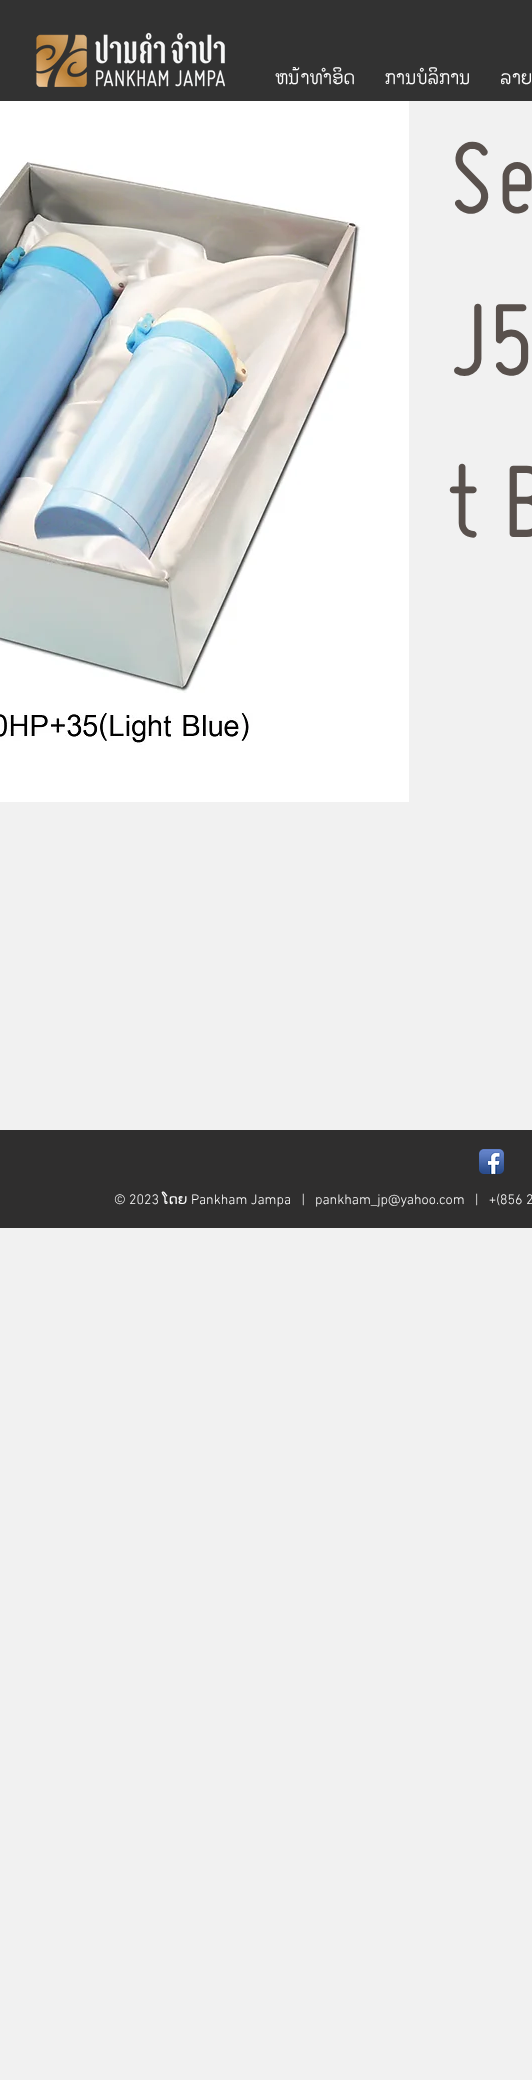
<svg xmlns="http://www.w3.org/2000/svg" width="532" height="2080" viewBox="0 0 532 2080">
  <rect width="100%" height="100%" fill="rgb(241,241,241)"/>
  <rect x="0" y="0" width="532" height="101" fill="rgb(50,50,50)"/>
  <image x="36" y="32" width="189" height="55" href="pic1.png"/>
  <g font-family="'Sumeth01'" font-size="19" fill="rgb(255,255,255)">
    <text x="275" y="84">ຫນ້າທໍາອິດ</text>
    <text x="385" y="84">ການບໍລິການ</text>
    <text x="500" y="84">ລາຍ</text>
  </g>
  <image x="0" y="101" width="409" height="701" href="pic2.png"/>
  <g font-family="'Sumeth01'" font-size="100" fill="rgb(89,81,77)">
    <text>
      <tspan x="449" y="213">Se</tspan>
      <tspan x="449" y="375">J5</tspan>
      <tspan x="449" y="537">t B</tspan>
    </text>
  </g>
  <rect x="0" y="1130" width="532" height="98" fill="rgb(47,46,46)"/>
  <image x="479" y="1149" width="25" height="25" href="pic3.png"/>
  <text x="114" y="1204" font-family="'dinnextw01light'" font-size="14" font-weight="300" fill="rgb(255,255,255)">© 2023</text>
  <text x="162" y="1204" font-family="DejaVu Sans" font-size="14" fill="rgb(255,255,255)">ໂດຍ</text>
  <g font-family="'dinnextw01light'" font-size="14" font-weight="300" fill="rgb(255,255,255)">
    <text x="191" y="1204" xml:space="preserve">Pankham Jampa   |</text>
    <text x="315" y="1204">pankham_jp@yahoo.com</text>
    <text x="475" y="1204" xml:space="preserve">|   +(856 2</text>
  </g>
</svg>
